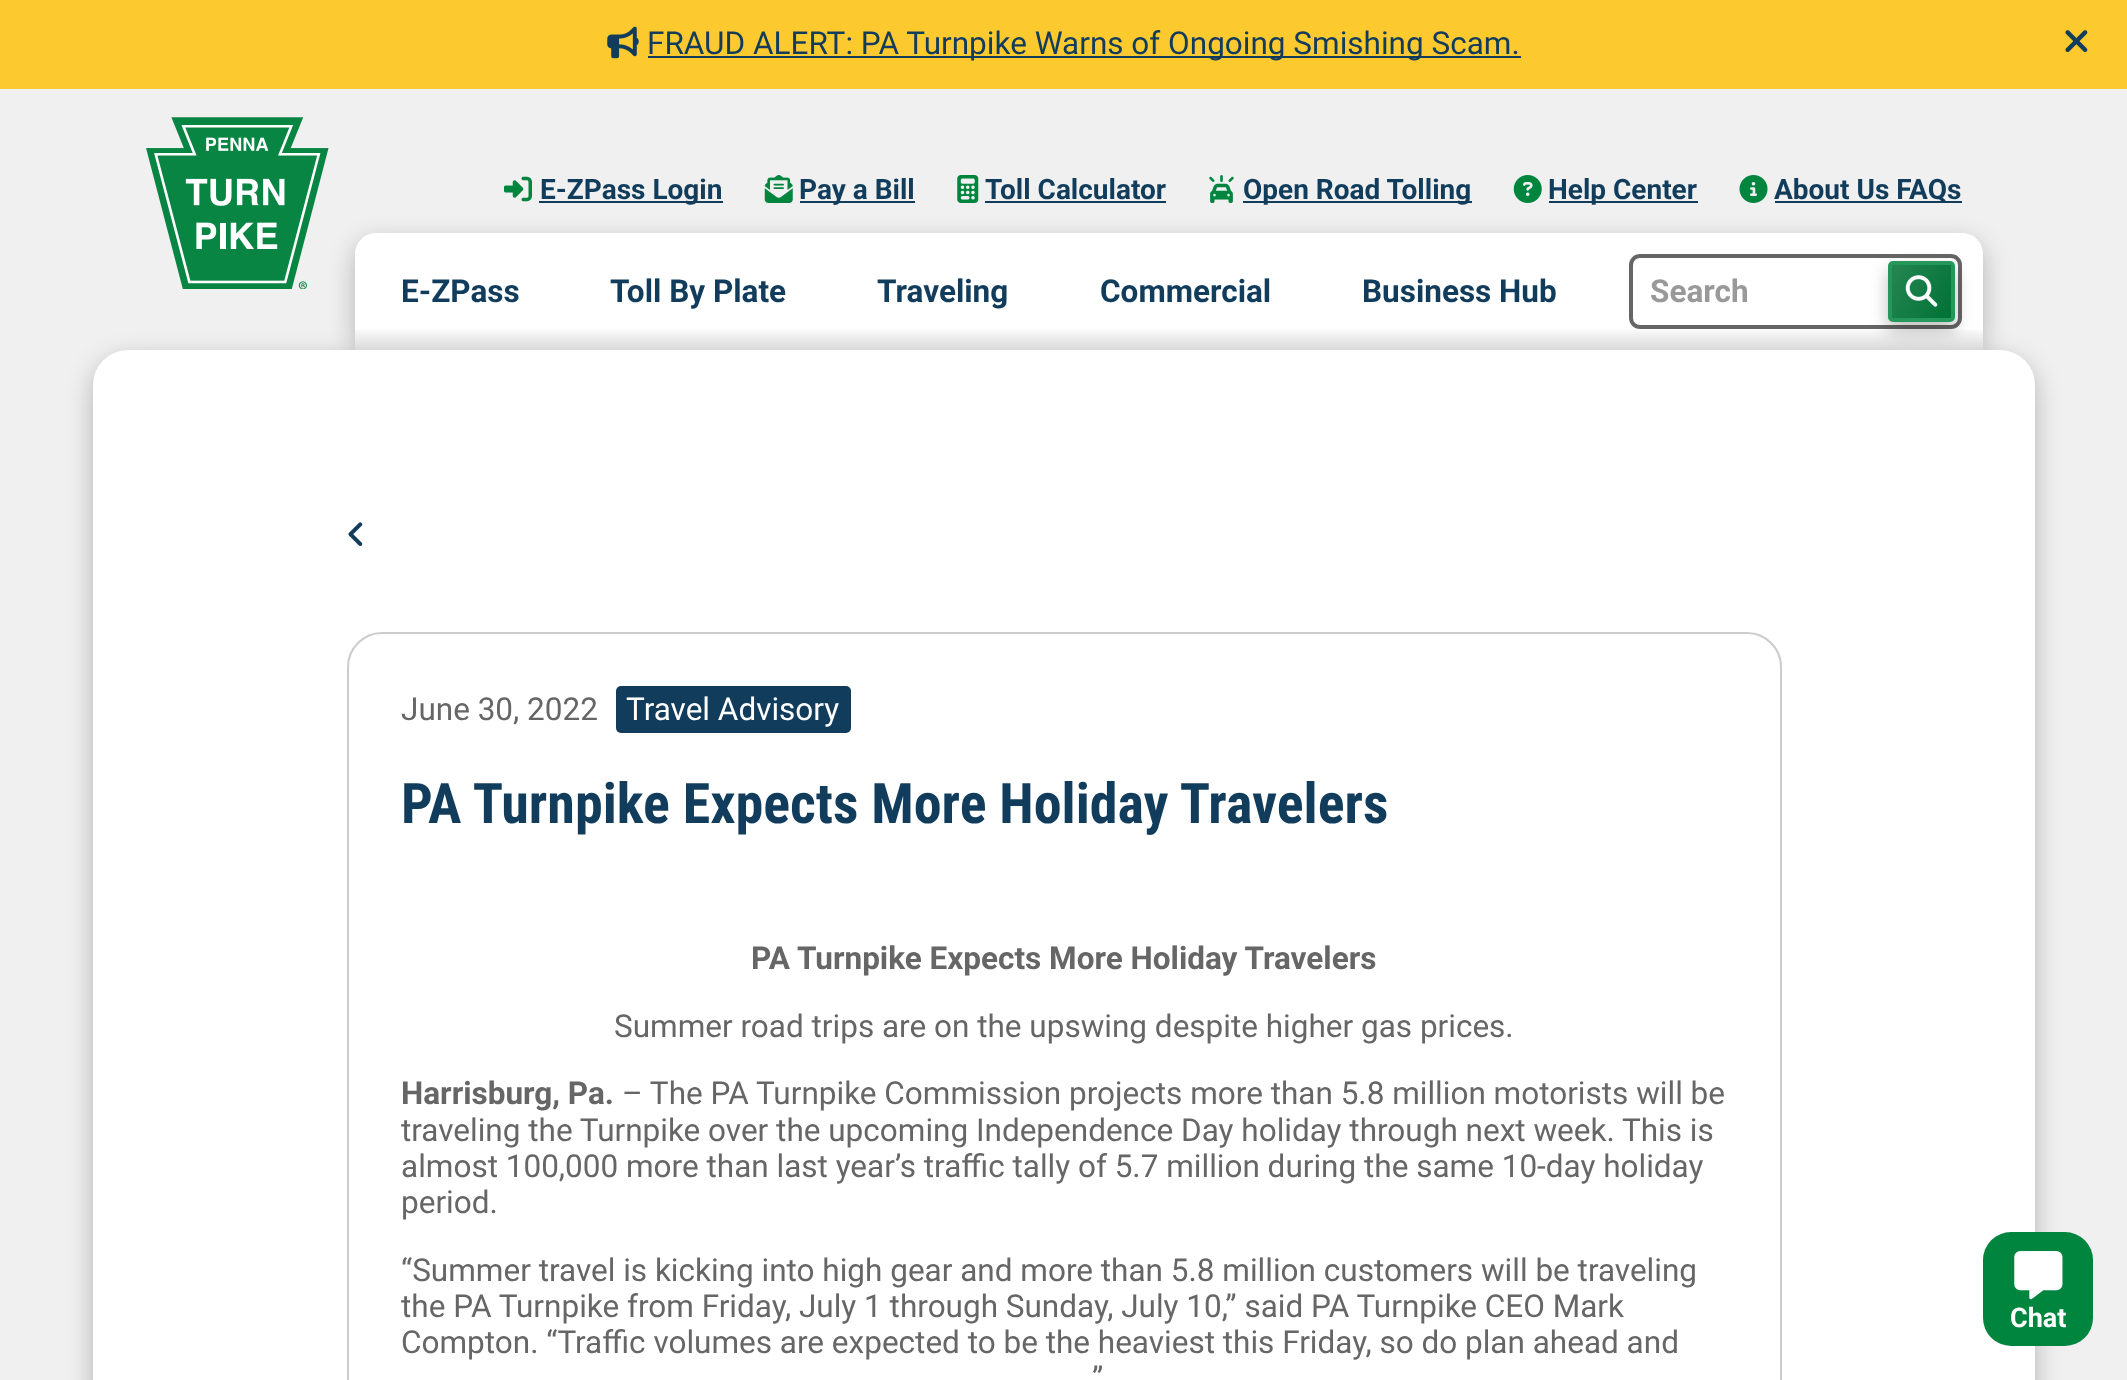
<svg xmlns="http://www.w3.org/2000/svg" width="2127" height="1380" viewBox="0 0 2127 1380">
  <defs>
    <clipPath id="clip1"><rect x="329" y="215" width="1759" height="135"/></clipPath>
    <linearGradient id="g1" gradientUnits="userSpaceOnUse" x1="1169" y1="233" x2="1169" y2="350"><stop offset="0.8" stop-color="rgb(0,0,0)" stop-opacity="0"/><stop offset="1" stop-color="rgb(0,0,0)" stop-opacity="0.15"/></linearGradient>
    <linearGradient id="g2" gradientUnits="userSpaceOnUse" x1="1887" y1="272" x2="1956" y2="311"><stop offset="0" stop-color="rgb(38,134,83)"/><stop offset="1" stop-color="rgb(0,113,53)"/></linearGradient>
  </defs>
  <rect width="100%" height="100%" fill="rgb(240,240,240)"/>
  <rect x="0" y="0" width="2127" height="89" fill="rgb(252,201,46)"/>
  <image x="607" y="26" width="32" height="33" href="pic1.png"/>
  <rect x="648" y="56" width="873" height="2" fill="rgb(17,60,91)"/>
  <text x="647" y="54" font-family="Roboto" font-size="31.5" fill="rgb(17,60,91)">FRAUD ALERT: PA Turnpike Warns of Ongoing Smishing Scam.</text>
  <image x="2065" y="30" width="23" height="22" href="pic2.png"/>
  <image x="146" y="117" width="183" height="172" href="pic3.png"/>
  <image x="504" y="176" width="28" height="26" href="pic4.png"/>
  <rect x="539" y="201" width="184" height="2" fill="rgb(17,60,91)"/>
  <text x="540" y="199" font-family="Roboto" font-size="28" font-weight="bold" fill="rgb(17,60,91)">E-ZPass Login</text>
  <image x="764" y="175" width="29" height="28" href="pic5.png"/>
  <rect x="800" y="201" width="115" height="2" fill="rgb(17,60,91)"/>
  <text x="799" y="199" font-family="Roboto" font-size="28" font-weight="bold" fill="rgb(17,60,91)">Pay a Bill</text>
  <image x="957" y="175" width="22" height="28" href="pic6.png"/>
  <text x="985" y="199" font-family="Roboto" font-size="28" font-weight="bold" fill="rgb(17,60,91)">Toll Calculator</text>
  <rect x="985" y="201" width="181" height="2" fill="rgb(17,60,91)"/>
  <image x="1209" y="175" width="25" height="28" href="pic7.png"/>
  <rect x="1243" y="201" width="229" height="2" fill="rgb(17,60,91)"/>
  <text x="1243" y="199" font-family="Roboto" font-size="28" font-weight="bold" fill="rgb(17,60,91)">Open Road Tolling</text>
  <image x="1513" y="175" width="29" height="28" href="pic8.png"/>
  <rect x="1549" y="201" width="149" height="2" fill="rgb(17,60,91)"/>
  <text x="1548" y="199" font-family="Roboto" font-size="28" font-weight="bold" fill="rgb(17,60,91)">Help Center</text>
  <image x="1739" y="175" width="29" height="28" href="pic9.png"/>
  <rect x="1775" y="201" width="187" height="2" fill="rgb(17,60,91)"/>
  <text x="1774" y="199" font-family="Roboto" font-size="28" font-weight="bold" fill="rgb(17,60,91)">About Us FAQs</text>
  <rect x="93" y="359" width="1942" height="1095" rx="35" fill="rgba(0,0,0,0.25)" filter="blur(13px)"/>
  <rect x="93" y="350" width="1942" height="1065" rx="35" fill="rgb(255,255,255)"/>
  <g clip-path="url(#clip1)">
    <rect x="355" y="242" width="1628" height="117" rx="21" fill="rgba(0,0,0,0.25)" filter="blur(13px)"/>
  </g>
  <path d="M376 233H1962C1973.5 233 1983 242.5 1983 254V350H355V254C355 242.5 364.5 233 376 233Z" fill="rgb(255,255,255)"/>
  <rect x="355" y="330" width="1628" height="20" fill="url(#g1)"/>
  <g font-family="Roboto" font-size="31.5" font-weight="bold" fill="rgb(17,60,91)">
    <text x="401" y="302">E-ZPass</text>
    <text x="610" y="302">Toll By Plate</text>
    <text x="877" y="302">Traveling</text>
    <text x="1100" y="302">Commercial</text>
    <text x="1362" y="302">Business Hub</text>
  </g>
  <rect x="1631" y="256" width="329" height="71" rx="9" fill="none" stroke="rgb(102,102,102)" stroke-width="4"/>
  <text x="1650" y="302" font-family="Roboto" font-size="31.5" font-weight="bold" fill="rgb(153,153,153)">Search</text>
  <rect x="1888" y="270" width="67" height="61" rx="5" fill="rgba(0,0,0,0.25)" filter="blur(9px)"/>
  <rect x="1892" y="265" width="59" height="53" fill="url(#g2)"/>
  <rect x="1890" y="263" width="63" height="57" rx="3" fill="none" stroke="rgb(38,151,91)" stroke-width="4"/>
  <image x="1905" y="275" width="33" height="32" href="pic10.png"/>
  <image x="348" y="522" width="15" height="24" href="pic11.png"/>
  <rect x="348" y="633" width="1433" height="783" rx="34" fill="none" stroke="rgb(204,204,204)" stroke-width="2"/>
  <text x="401" y="720" font-family="Roboto" font-size="31.5" fill="rgb(102,102,102)">June 30, 2022</text>
  <rect x="616" y="686" width="235" height="47" rx="5" fill="rgb(17,60,91)"/>
  <text x="626" y="720" font-family="Roboto" font-size="31.5" fill="rgb(255,255,255)">Travel Advisory</text>
  <text x="401" y="823" font-family="Roboto Condensed" font-size="56" font-weight="bold" fill="rgb(17,60,91)">PA Turnpike Expects More Holiday Travelers</text>
  <text x="751" y="969" font-family="Roboto" font-size="31.5" font-weight="bold" fill="rgb(102,102,102)">PA Turnpike Expects More Holiday Travelers</text>
  <text x="614" y="1037" font-family="Roboto" font-size="31.5" fill="rgb(102,102,102)">Summer road trips are on the upswing despite higher gas prices.</text>
  <text x="401" y="1104" font-family="Roboto" font-size="31.5" font-weight="bold" fill="rgb(102,102,102)">Harrisburg, Pa.</text>
  <g font-family="Roboto" font-size="31.5" fill="rgb(102,102,102)">
    <text x="622" y="1104">– The PA Turnpike Commission projects more than 5.8 million motorists will be</text>
    <text>
      <tspan x="401" y="1141">traveling the Turnpike over the upcoming Independence Day holiday through next week. This is</tspan>
      <tspan x="401" y="1177">almost 100,000 more than last year’s traffic tally of 5.7 million during the same 10-day holiday</tspan>
      <tspan x="401" y="1213">period.</tspan>
    </text>
    <text>
      <tspan x="401" y="1281">“Summer travel is kicking into high gear and more than 5.8 million customers will be traveling</tspan>
      <tspan x="401" y="1317">the PA Turnpike from Friday, July 1 through Sunday, July 10,” said PA Turnpike CEO Mark</tspan>
      <tspan x="401" y="1353">Compton. “Traffic volumes are expected to be the heaviest this Friday, so do plan ahead and</tspan>
    </text>
    <text x="1092" y="1389">”</text>
  </g>
  <rect x="1983" y="1232" width="110" height="114" rx="28" fill="rgb(0,133,62)"/>
  <image x="2014" y="1251" width="49" height="49" href="pic12.png"/>
  <text x="2010" y="1327" font-family="Roboto" font-size="27" font-weight="bold" fill="rgb(255,255,255)">Chat</text>
</svg>
